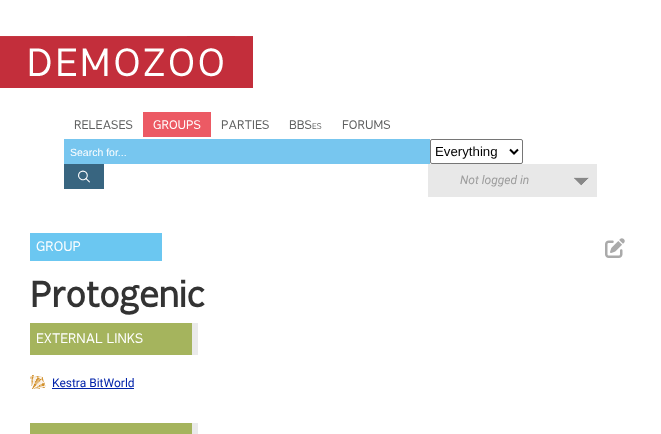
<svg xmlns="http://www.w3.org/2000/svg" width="661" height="434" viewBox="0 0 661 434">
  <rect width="100%" height="100%" fill="rgb(255,255,255)"/>
  <rect x="0" y="77" width="253" height="11" fill="rgb(195,46,59)"/>
  <image x="0" y="36" width="253" height="41" href="pic1.png"/>
  <text x="74" y="129" font-family="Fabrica" font-size="12" fill="rgb(94,95,95)">RELEASES</text>
  <rect x="143" y="112" width="68" height="25" fill="rgb(236,90,100)"/>
  <text x="153" y="129" font-family="Fabrica" font-size="12" fill="rgb(255,255,255)">GROUPS</text>
  <g font-family="Fabrica" font-size="12" fill="rgb(94,95,95)">
    <text x="221" y="129">PARTIES</text>
    <text x="289" y="129">BBS</text>
  </g>
  <text x="312" y="129" font-family="Fabrica" font-size="8" fill="rgb(94,95,95)">ES</text>
  <text x="342" y="129" font-family="Fabrica" font-size="12" fill="rgb(94,95,95)">FORUMS</text>
  <rect x="64" y="139" width="366" height="25" fill="rgb(119,198,239)"/>
  <text x="70" y="156" font-family="Liberation Sans" font-size="10.5" fill="rgb(255,255,255)">Search for...</text>
  <rect x="430.5" y="139.5" width="92" height="24" rx="1.5" fill="none" stroke="rgb(118,118,118)"/>
  <path d="M510 149.5L514 153.5L518 149.5" fill="none" stroke="rgb(0,0,0)" stroke-width="2"/>
  <text x="435" y="156" font-family="Liberation Sans" font-size="13.25" fill="rgb(0,0,0)">Everything</text>
  <rect x="64" y="164" width="40" height="25" fill="rgb(56,101,128)"/>
  <image x="78" y="170" width="12" height="13" href="pic2.png"/>
  <rect x="428" y="164" width="169" height="33" fill="rgb(232,232,232)"/>
  <image x="574" y="177" width="15" height="9" href="pic3.png"/>
  <text x="460" y="184" font-family="Roboto" font-size="12" font-style="italic" fill="rgb(157,157,157)">Not logged in</text>
  <rect x="30" y="233" width="132" height="28" fill="rgb(107,199,241)"/>
  <text x="36" y="251" font-family="Fabrica" font-size="13.25" fill="rgb(255,255,255)">GROUP</text>
  <image x="605" y="238" width="20" height="20" href="pic4.png"/>
  <text x="30" y="307" font-family="Fabrica" font-size="34.5" font-weight="bold" fill="rgb(51,51,51)">Protogenic</text>
  <rect x="30" y="323" width="162" height="32" fill="rgb(165,180,93)"/>
  <rect x="192" y="323" width="6" height="32" fill="rgb(234,234,234)"/>
  <text x="36" y="343" font-family="Fabrica" font-size="13.25" fill="rgb(255,255,255)">EXTERNAL LINKS</text>
  <image x="30" y="375" width="16" height="14" href="pic5.png"/>
  <text x="52" y="387" font-family="Roboto" font-size="12" fill="rgb(0,34,170)">Kestra BitWorld</text>
  <rect x="52" y="388" width="82" height="1" fill="rgb(0,34,170)"/>
  <rect x="30" y="423" width="162" height="11" fill="rgb(165,180,93)"/>
  <rect x="192" y="423" width="6" height="11" fill="rgb(234,234,234)"/>
</svg>
